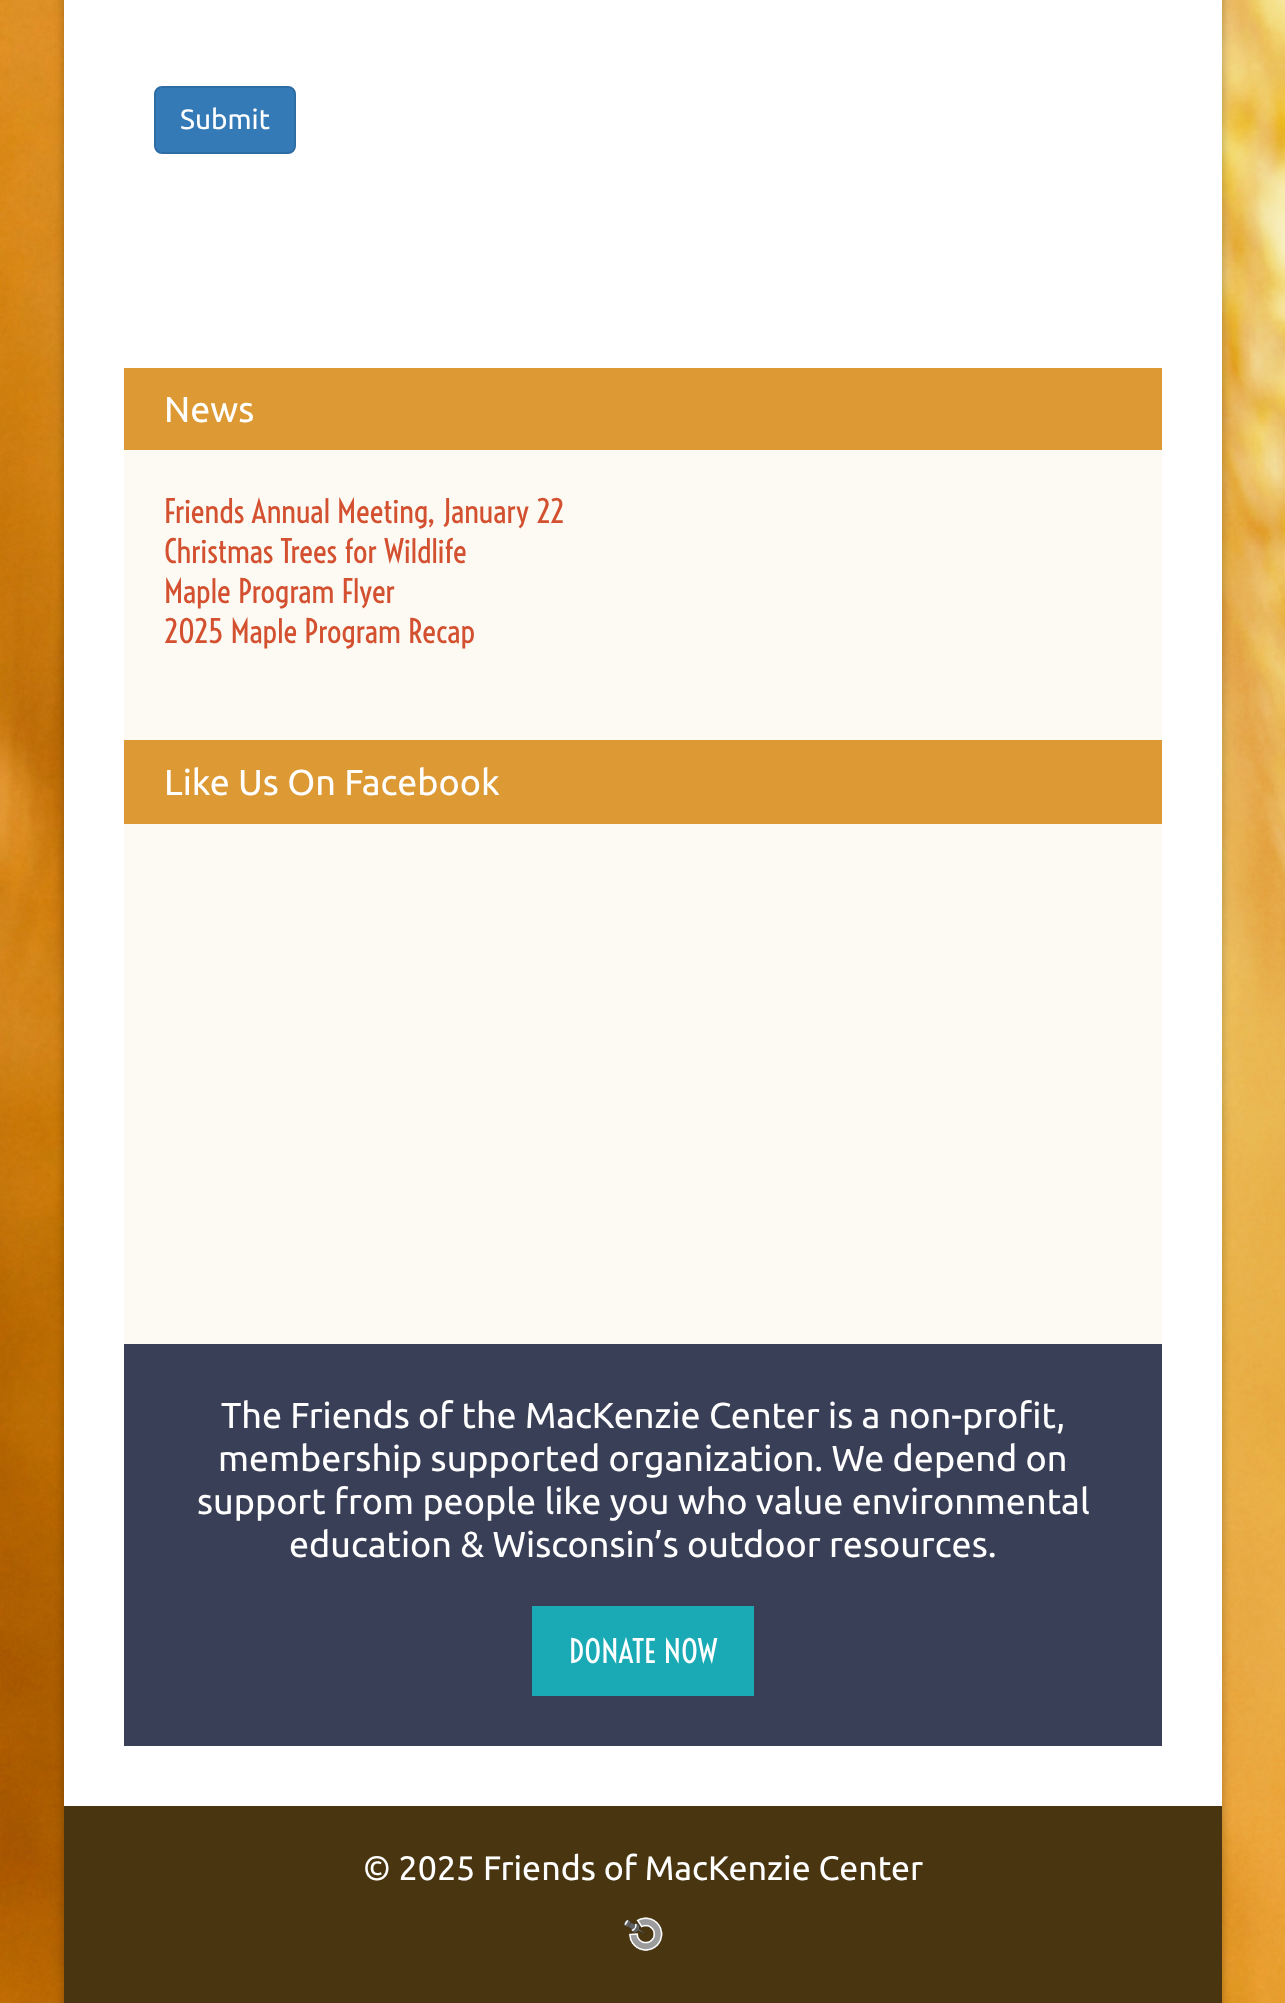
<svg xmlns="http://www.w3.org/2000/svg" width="1285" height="2003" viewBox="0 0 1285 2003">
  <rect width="100%" height="100%" fill="rgb(255,255,255)"/>
  <image x="0" y="0" width="1285" height="2003" href="pic1.png"/>
  <rect x="64" y="-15" width="1158" height="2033" fill="rgba(0,0,0,0.26)" filter="blur(5px)"/>
  <rect x="64" y="0" width="1158" height="1806" fill="rgb(255,255,255)"/>
  <rect x="155" y="87" width="140" height="66" rx="7" fill="rgb(51,122,183)" stroke="rgb(46,109,164)" stroke-width="2"/>
  <text x="180" y="129" font-family="Ubuntu" font-size="28" fill="rgb(255,255,255)">Submit</text>
  <rect x="124" y="450" width="1038" height="290" fill="rgb(252,250,242)"/>
  <rect x="124" y="368" width="1038" height="82" fill="rgb(221,153,51)"/>
  <text x="164" y="422" font-family="Ubuntu" font-size="36" fill="rgb(255,255,255)">News</text>
  <g font-family="Voltaire" font-size="32" fill="rgb(211,81,48)">
    <text>
      <tspan x="164" y="523">Friends Annual Meeting, January 22</tspan>
      <tspan x="164" y="563">Christmas Trees for Wildlife</tspan>
      <tspan x="164" y="603">Maple Program Flyer</tspan>
      <tspan x="164" y="643">2025 Maple Program Recap</tspan>
    </text>
  </g>
  <rect x="124" y="824" width="1038" height="520" fill="rgb(252,250,242)"/>
  <rect x="124" y="740" width="1038" height="84" fill="rgb(221,153,51)"/>
  <text x="164" y="795" font-family="Ubuntu" font-size="36" fill="rgb(255,255,255)">Like Us On Facebook</text>
  <rect x="124" y="1344" width="1038" height="402" fill="rgb(57,63,86)"/>
  <g font-family="Ubuntu" font-size="36" fill="rgb(255,255,255)">
    <text x="221" y="1428">The Friends of the MacKenzie Center is a non-profit,</text>
    <text x="218" y="1471">membership supported organization. We depend on</text>
    <text x="197" y="1514">support from people like you who value environmental</text>
    <text x="289" y="1557">education &amp; Wisconsin’s outdoor resources.</text>
  </g>
  <rect x="532" y="1606" width="222" height="90" fill="rgb(25,170,181)"/>
  <text x="569" y="1663" font-family="Voltaire" font-size="32" fill="rgb(255,255,255)">DONATE NOW</text>
  <rect x="64" y="1806" width="1158" height="197" fill="rgb(73,54,17)"/>
  <text x="363" y="1880" font-family="Ubuntu" font-size="34" fill="rgb(255,255,255)">© 2025 Friends of MacKenzie Center</text>
  <image x="624" y="1917" width="39" height="34" href="pic2.png"/>
</svg>
